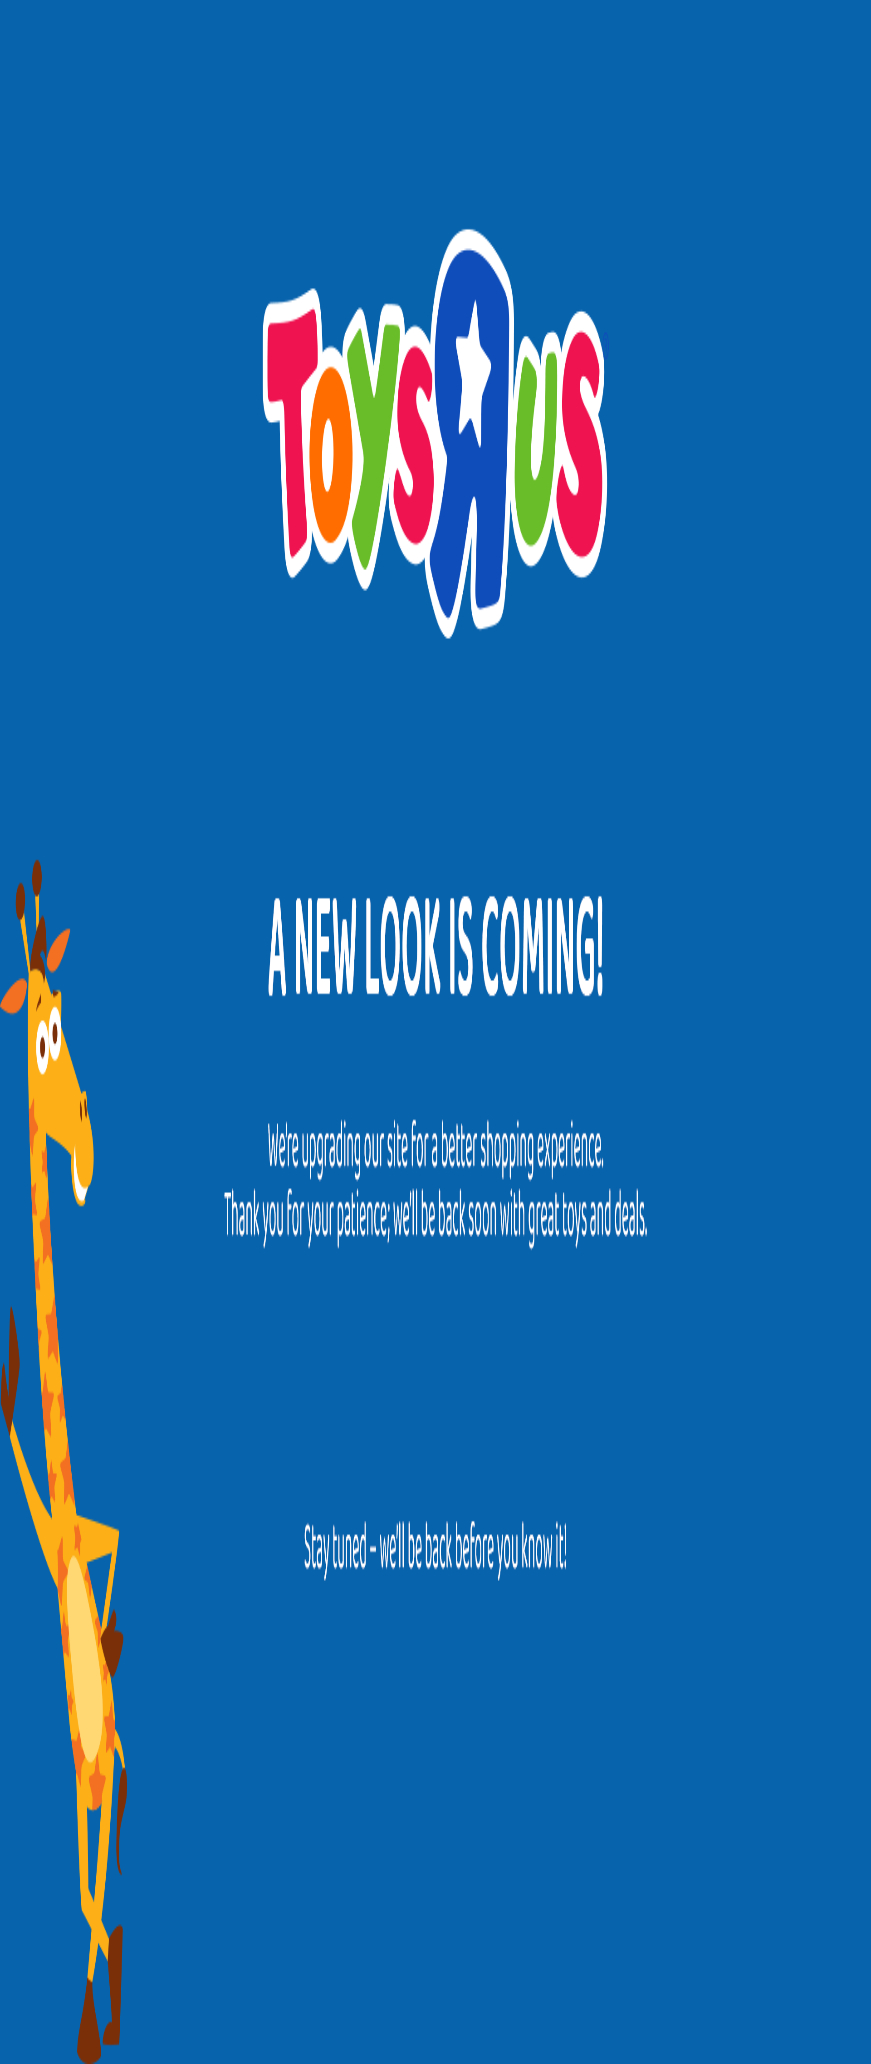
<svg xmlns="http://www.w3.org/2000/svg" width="871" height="2064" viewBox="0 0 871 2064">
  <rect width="100%" height="100%" fill="rgb(255,255,255)"/>
  <image x="0" y="0" width="871" height="2064" href="pic1.png"/>
</svg>
